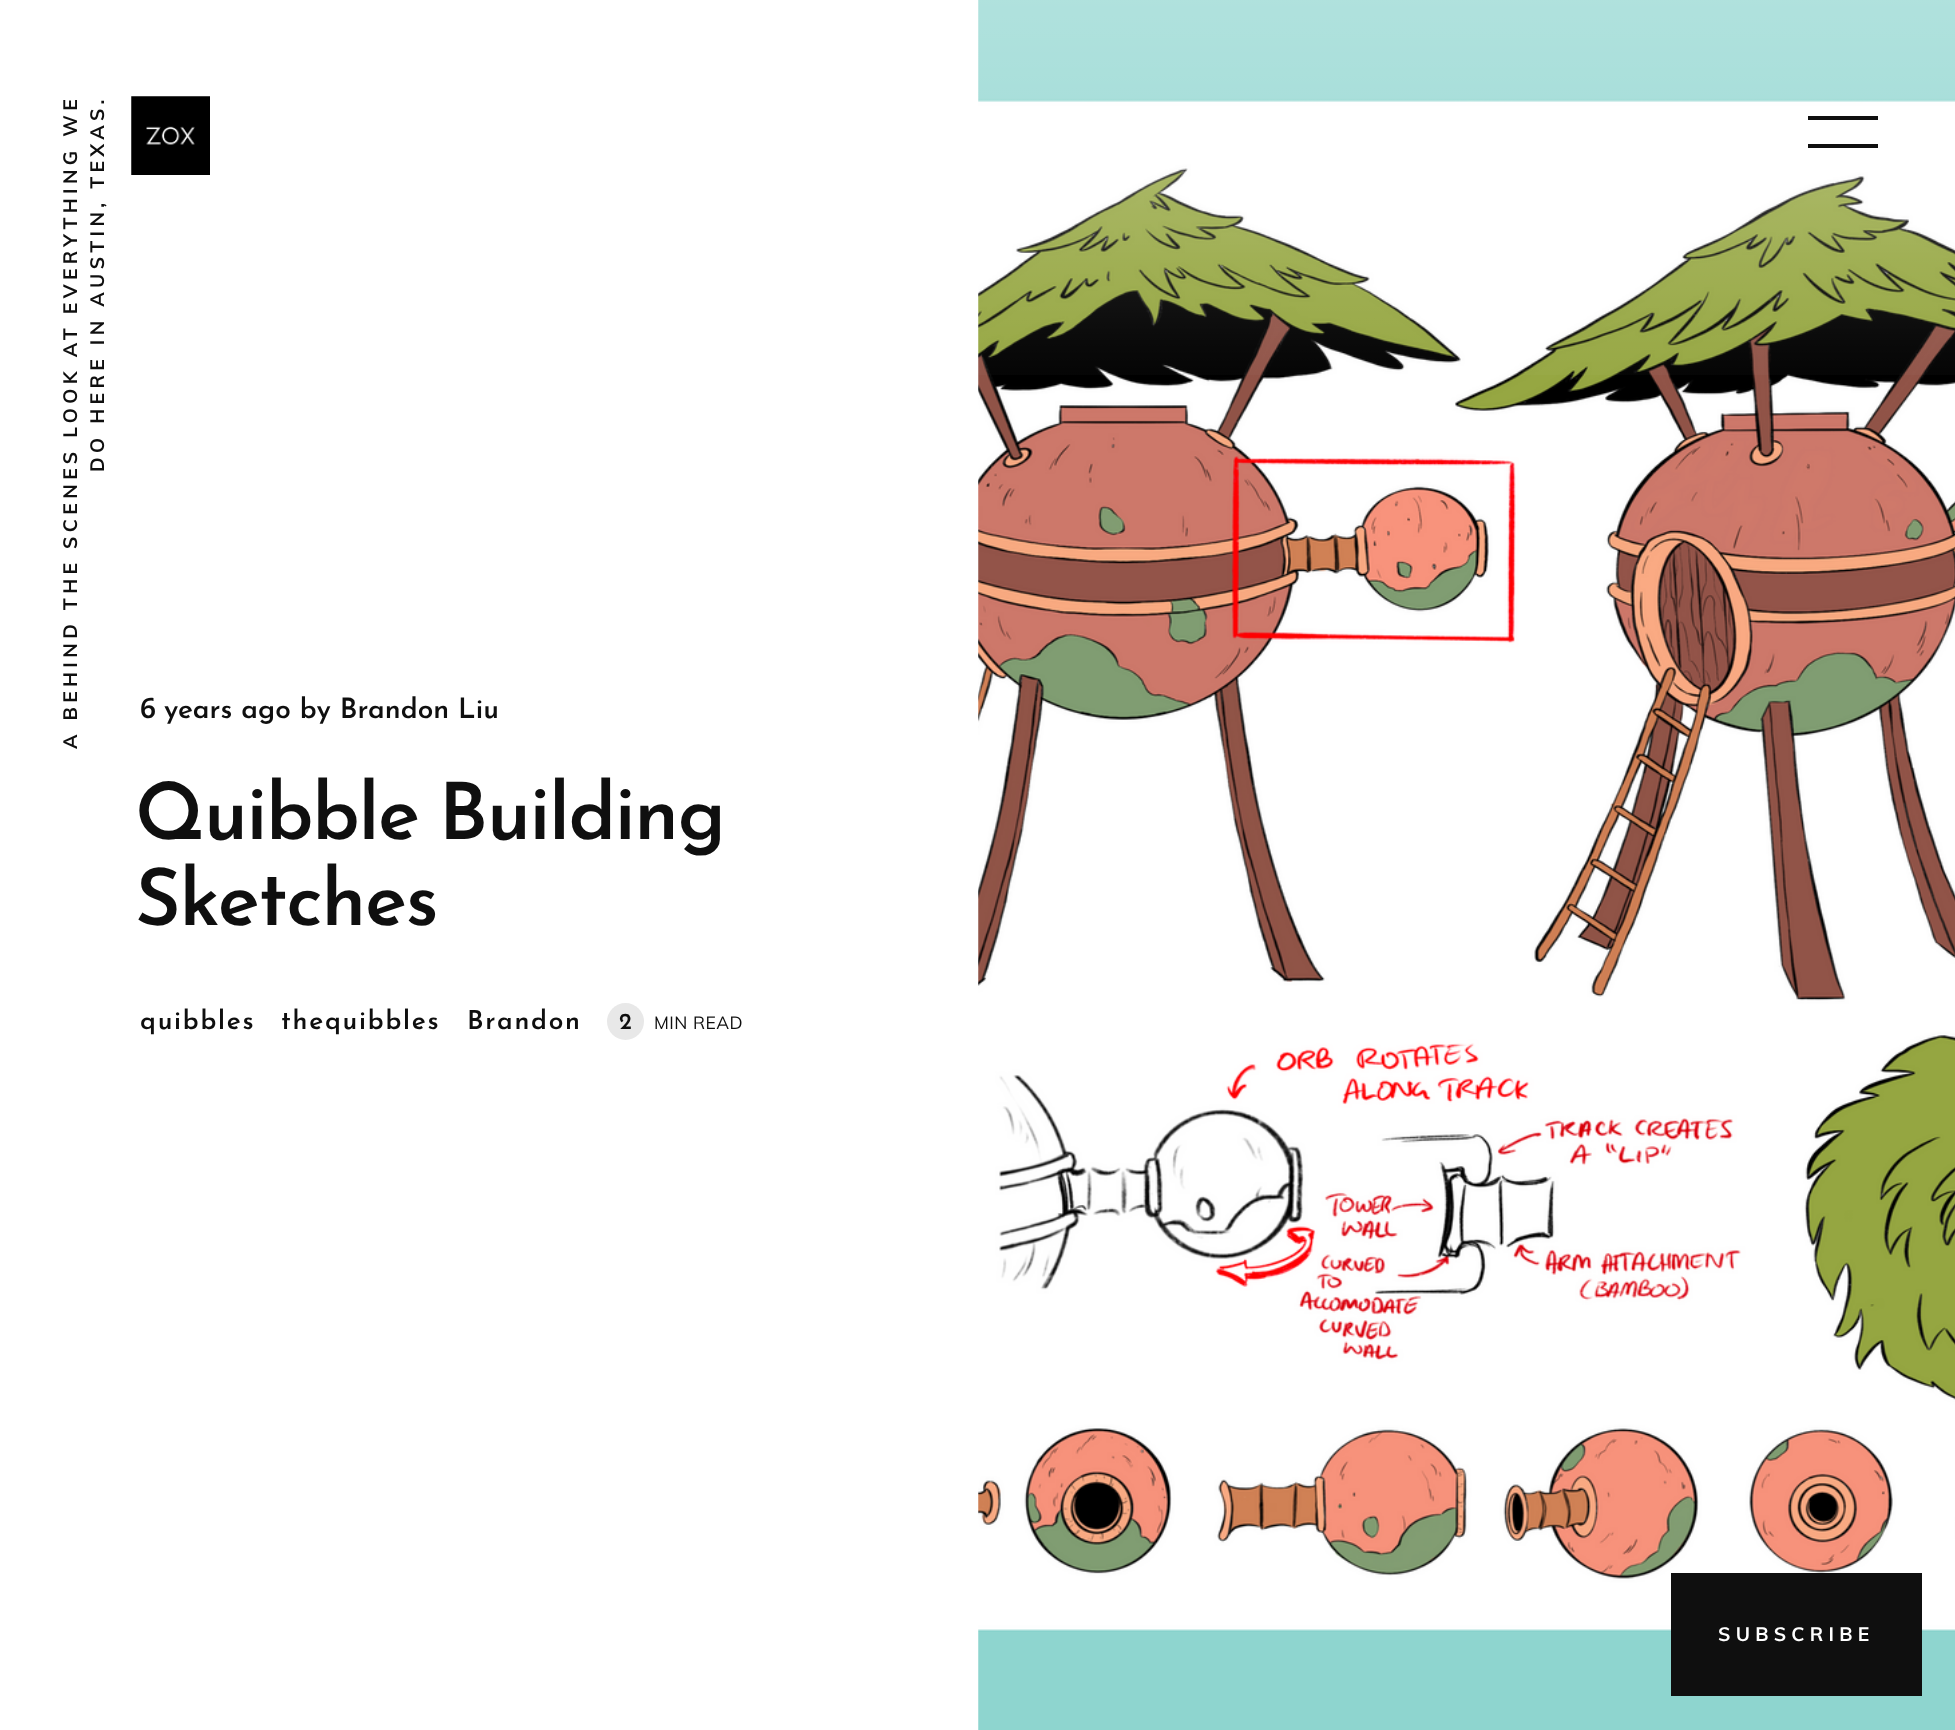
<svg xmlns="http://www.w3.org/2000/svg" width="1955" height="1730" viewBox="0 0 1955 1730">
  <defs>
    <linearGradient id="g1" gradientUnits="userSpaceOnUse" x1="1467" y1="0" x2="1467" y2="455"><stop offset="0" stop-color="rgb(255,255,255)" stop-opacity="0.3"/><stop offset="0.08" stop-color="rgb(255,255,255)" stop-opacity="0.28"/><stop offset="0.15" stop-color="rgb(255,255,255)" stop-opacity="0.26"/><stop offset="0.22" stop-color="rgb(255,255,255)" stop-opacity="0.24"/><stop offset="0.29" stop-color="rgb(255,255,255)" stop-opacity="0.22"/><stop offset="0.35" stop-color="rgb(255,255,255)" stop-opacity="0.2"/><stop offset="0.41" stop-color="rgb(255,255,255)" stop-opacity="0.18"/><stop offset="0.46" stop-color="rgb(255,255,255)" stop-opacity="0.15"/><stop offset="0.52" stop-color="rgb(255,255,255)" stop-opacity="0.13"/><stop offset="0.57" stop-color="rgb(255,255,255)" stop-opacity="0.1"/><stop offset="0.63" stop-color="rgb(255,255,255)" stop-opacity="0.08"/><stop offset="0.69" stop-color="rgb(255,255,255)" stop-opacity="0.06"/><stop offset="0.75" stop-color="rgb(255,255,255)" stop-opacity="0.04"/><stop offset="0.83" stop-color="rgb(255,255,255)" stop-opacity="0.02"/><stop offset="0.91" stop-color="rgb(255,255,255)" stop-opacity="0"/><stop offset="1" stop-color="rgb(255,255,255)" stop-opacity="0"/></linearGradient>
  </defs>
  <rect width="100%" height="100%" fill="rgb(255,255,255)"/>
  <g font-family="Muli" font-size="19.25" font-weight="bold" letter-spacing="4.4" fill="rgb(15,15,15)">
    <text x="77" y="749" transform="rotate(-90 77 749)">A BEHIND THE SCENES LOOK AT EVERYTHING WE</text>
    <text x="104" y="472" transform="rotate(-90 104 472)">DO HERE IN AUSTIN, TEXAS.</text>
  </g>
  <image x="131" y="96" width="79" height="79" href="pic1.png"/>
  <image x="978" y="0" width="977" height="1730" href="pic2.png"/>
  <rect x="978" y="0" width="977" height="375" fill="url(#g1)"/>
  <rect x="1808" y="116" width="70" height="4" fill="rgb(15,15,15)"/>
  <rect x="1808" y="144" width="70" height="4" fill="rgb(15,15,15)"/>
  <text x="140" y="718" font-family="Noto Sans" font-size="28" font-weight="600" fill="rgb(15,15,15)">6</text>
  <text x="164" y="718" font-family="Josefin Sans" font-size="28" font-weight="100" fill="rgb(15,15,15)">years ago by Brandon Liu</text>
  <g font-family="Josefin Sans" font-size="78.75" font-weight="100" letter-spacing="-1.4" fill="rgb(15,15,15)">
    <text>
      <tspan x="135" y="839" word-spacing="-4">Quibble Building</tspan>
      <tspan x="135" y="925">Sketches</tspan>
    </text>
  </g>
  <g font-family="Josefin Sans" font-size="26.25" font-weight="100" letter-spacing="1.75" fill="rgb(15,15,15)">
    <text x="140" y="1029">quibbles</text>
    <text x="281" y="1029">thequibbles</text>
    <text x="467" y="1029">Brandon</text>
  </g>
  <circle cx="625.5" cy="1021.5" r="18.5" fill="rgb(232,232,232)"/>
  <text x="619" y="1029" font-family="Josefin Sans" font-size="23" font-weight="100" fill="rgb(15,15,15)">2</text>
  <text x="654" y="1029" font-family="Muli" font-size="17.5" letter-spacing="0.5" fill="rgb(15,15,15)">MIN READ</text>
  <rect x="1671" y="1573" width="251" height="123" fill="rgb(15,15,15)"/>
  <text x="1718" y="1641" font-family="Muli" font-size="19.25" font-weight="bold" letter-spacing="5.25" fill="rgb(255,255,255)">SUBSCRIBE</text>
</svg>
